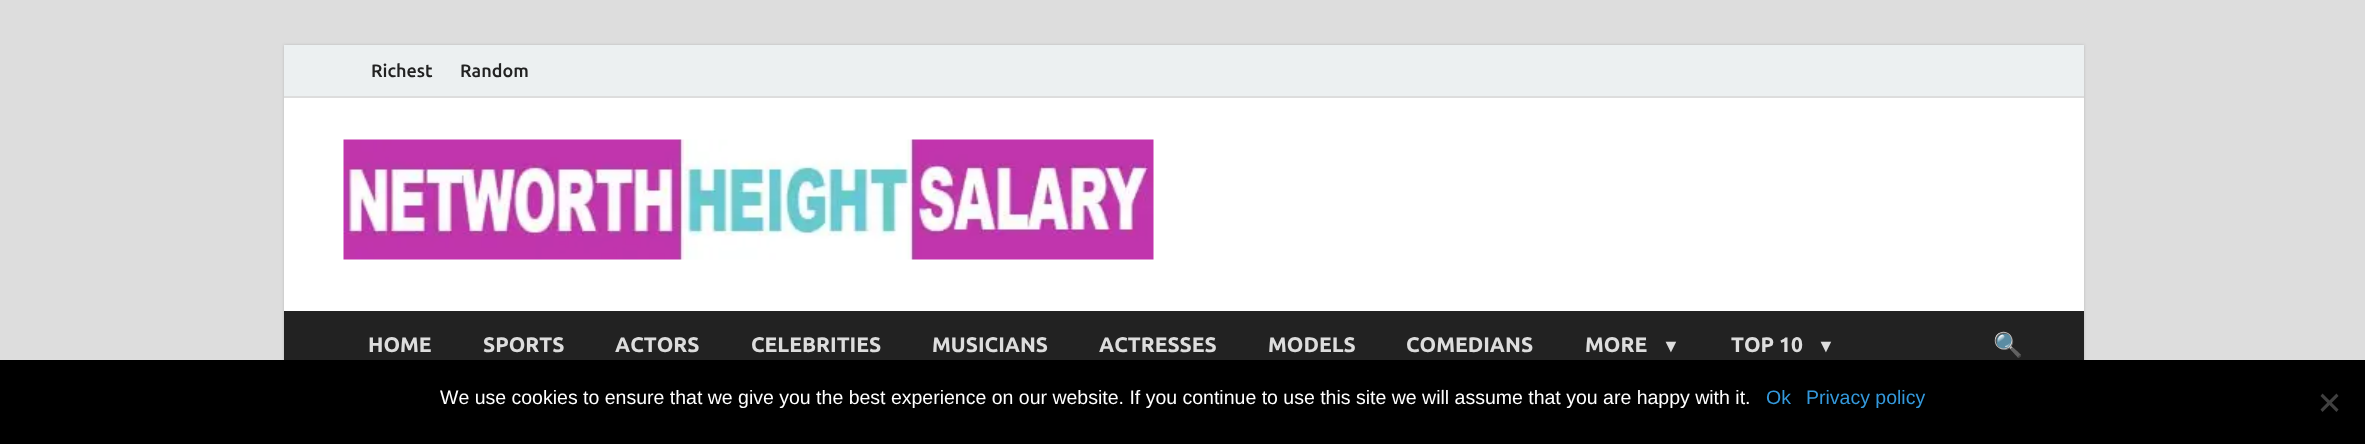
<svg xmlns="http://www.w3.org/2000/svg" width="2365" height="444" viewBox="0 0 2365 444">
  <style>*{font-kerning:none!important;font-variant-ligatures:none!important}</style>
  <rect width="100%" height="100%" fill="rgb(221,221,221)"/>
  <rect x="284" y="45" width="1800" height="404" fill="rgb(187,187,187)" filter="blur(1.5px)"/>
  <rect x="284" y="98" width="1800" height="213" fill="rgb(255,255,255)"/>
  <rect x="284" y="45" width="1800" height="51" fill="rgb(236,240,241)"/>
  <rect x="284" y="96" width="1800" height="2" fill="rgb(221,221,221)"/>
  <g font-family="Ubuntu" font-size="18" font-weight="500" fill="rgb(34,34,34)">
    <text x="371" y="77">Richest</text>
    <text x="460" y="77">Random</text>
  </g>
  <image x="343" y="139" width="811" height="121" href="pic1.png"/>
  <rect x="284" y="311" width="1800" height="49" fill="rgb(34,34,34)"/>
  <g font-family="Ubuntu" font-size="21" font-weight="bold" fill="rgb(221,221,221)">
    <text x="368" y="352">HOME</text>
    <text x="483" y="352">SPORTS</text>
    <text x="615" y="352">ACTORS</text>
    <text x="751" y="352">CELEBRITIES</text>
    <text x="932" y="352">MUSICIANS</text>
    <text x="1099" y="352">ACTRESSES</text>
    <text x="1268" y="352">MODELS</text>
    <text x="1406" y="352">COMEDIANS</text>
    <text x="1585" y="352">MORE</text>
  </g>
  <text x="1662" y="352" font-family="Liberation Serif" font-size="18" fill="rgb(221,221,221)">▼</text>
  <text x="1731" y="352" font-family="Ubuntu" font-size="21" font-weight="bold" fill="rgb(221,221,221)">TOP 10</text>
  <text x="1817" y="352" font-family="Liberation Serif" font-size="18" fill="rgb(221,221,221)">▼</text>
  <text x="1993" y="353" font-family="Noto Color Emoji" font-size="24" fill="rgb(221,221,221)">🔍</text>
  <rect x="0" y="360" width="2365" height="84" fill="rgb(0,0,0)"/>
  <text x="440" y="404" font-family="Liberation Sans" font-size="19.5" fill="rgb(255,255,255)">We use cookies to ensure that we give you the best experience on our website. If you continue to use this site we will assume that you are happy with it.</text>
  <g font-family="Liberation Sans" font-size="19.5" fill="rgb(52,152,219)">
    <text x="1766" y="404">Ok</text>
    <text x="1806" y="404">Privacy policy</text>
  </g>
  <path d="M2336.5 393.5L2338.5 396L2322.5 412L2320.5 409.5Z" fill="rgb(64,64,64)"/>
  <path d="M2320.5 396L2322.5 393.5L2338.5 409.5L2336.5 412Z" fill="rgb(64,64,64)"/>
</svg>
